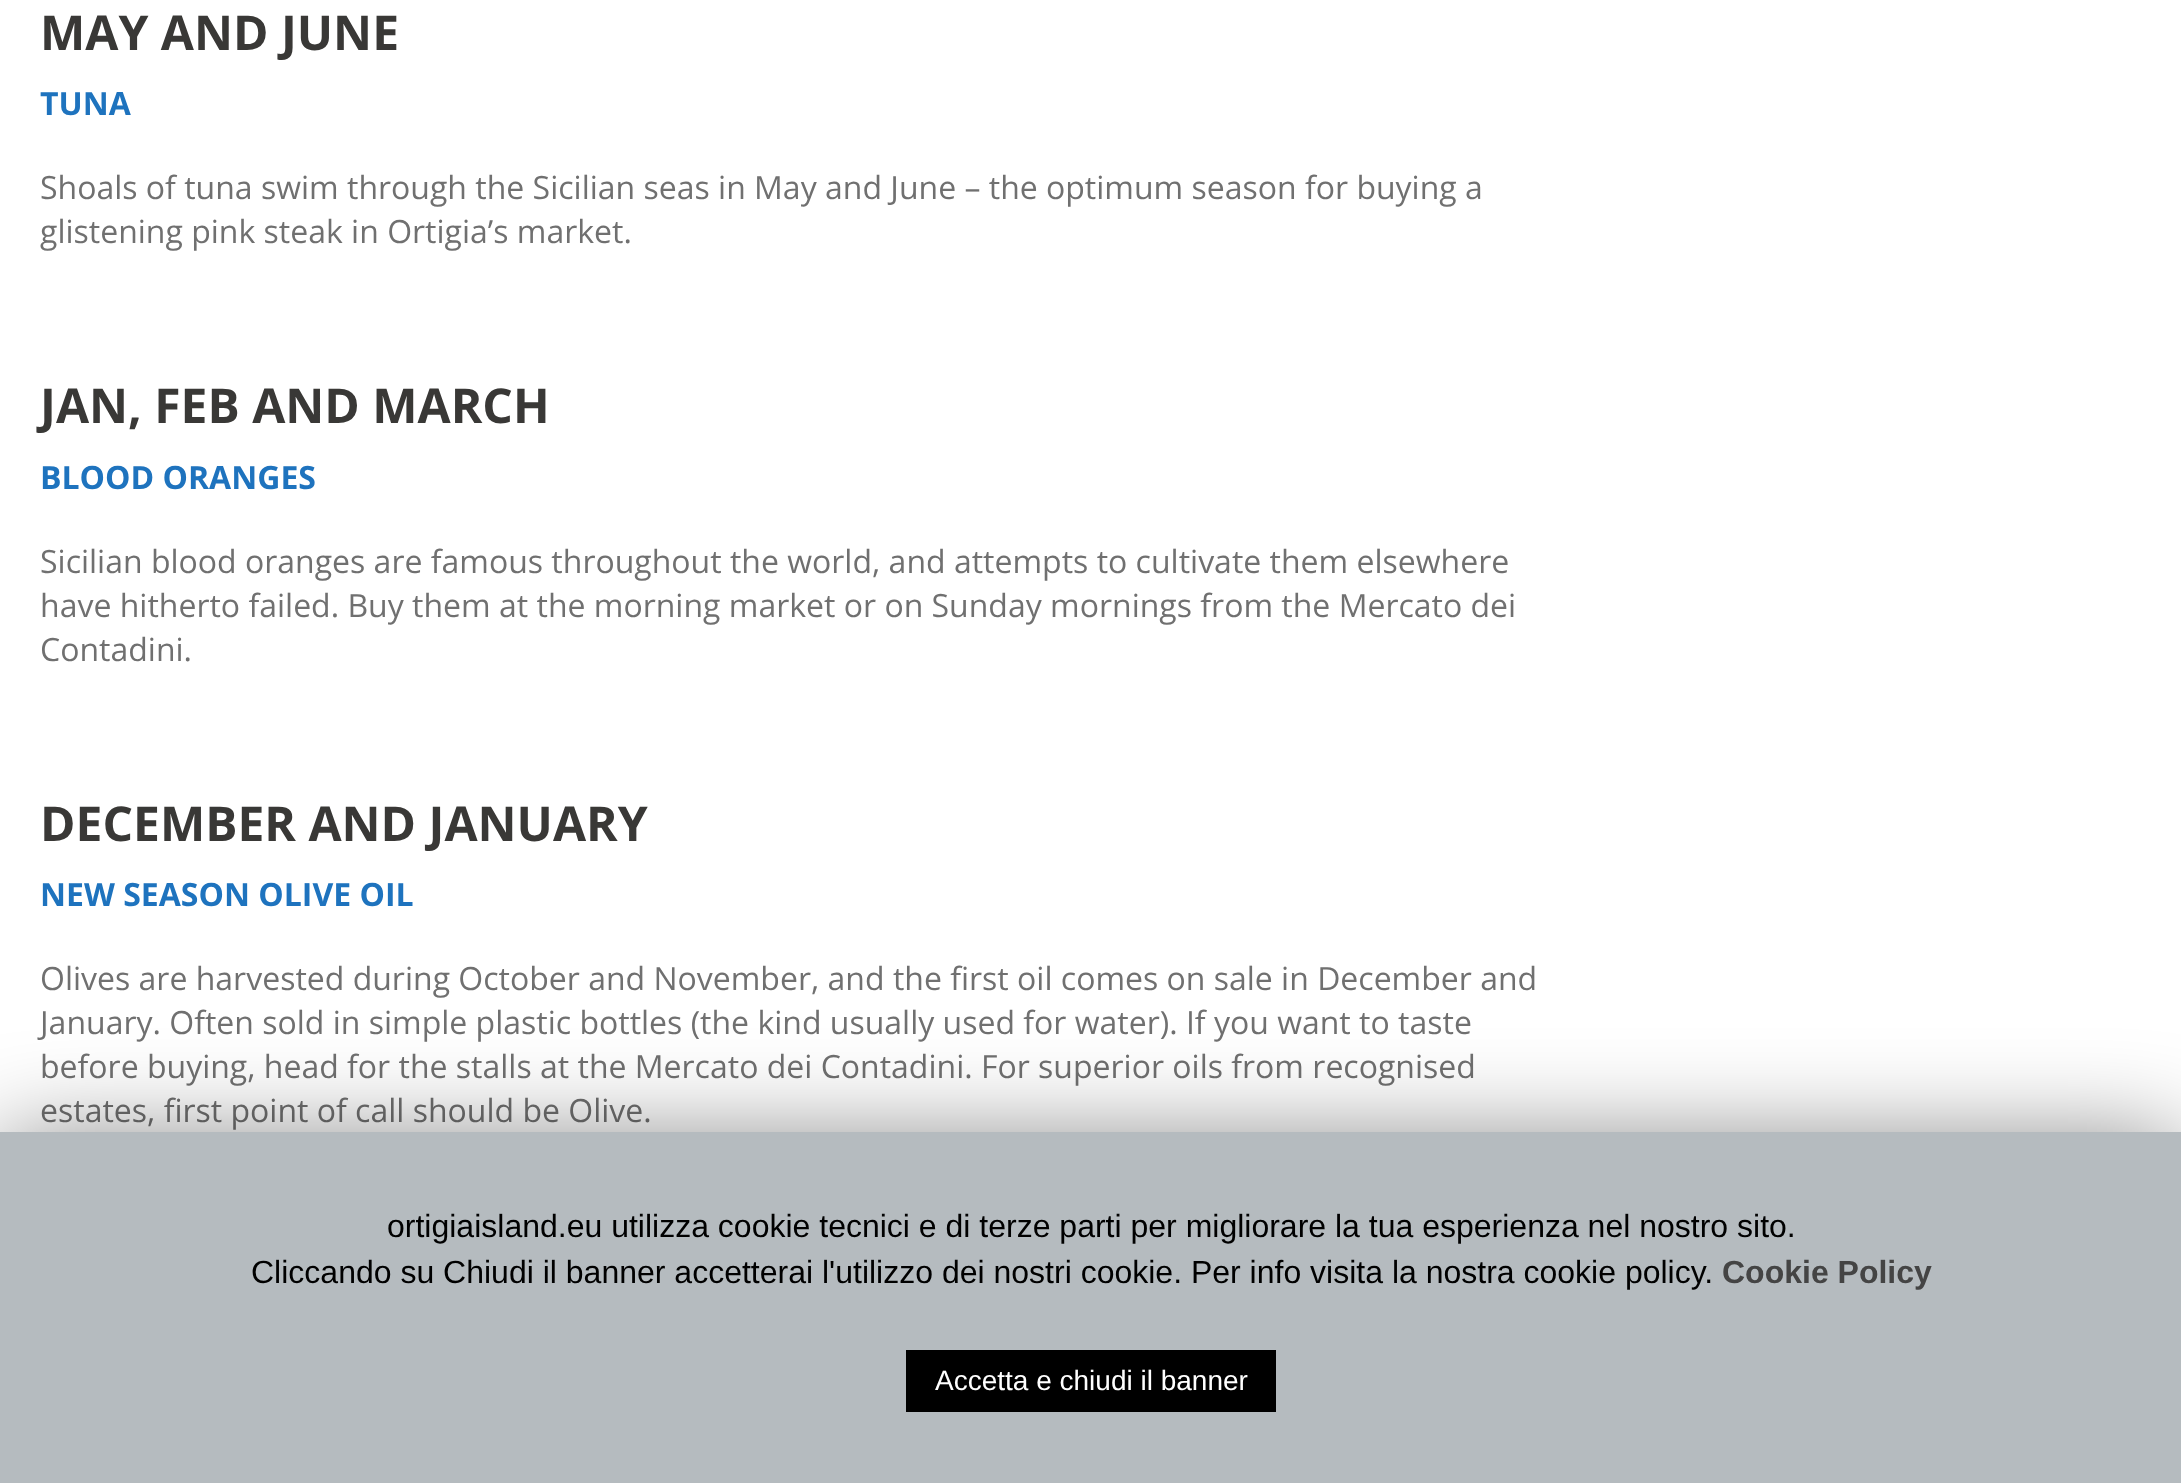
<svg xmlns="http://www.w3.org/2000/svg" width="2181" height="1483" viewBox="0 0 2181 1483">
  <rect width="100%" height="100%" fill="rgb(255,255,255)"/>
  <text x="40" y="50" font-family="Open Sans" font-size="48" font-weight="bold" fill="rgb(57,56,54)">MAY AND JUNE</text>
  <text x="40" y="115" font-family="Open Sans" font-size="32" font-weight="bold" fill="rgb(30,115,190)">TUNA</text>
  <g font-family="Open Sans" font-size="32" fill="rgb(112,112,112)">
    <text>
      <tspan x="40" y="199">Shoals of tuna swim through the Sicilian seas in May and June – the optimum season for buying a</tspan>
      <tspan x="40" y="243">glistening pink steak in Ortigia’s market.</tspan>
    </text>
  </g>
  <text x="40" y="423" font-family="Open Sans" font-size="48" font-weight="bold" fill="rgb(57,56,54)">JAN, FEB AND MARCH</text>
  <text x="40" y="489" font-family="Open Sans" font-size="32" font-weight="bold" fill="rgb(30,115,190)">BLOOD ORANGES</text>
  <g font-family="Open Sans" font-size="32" fill="rgb(112,112,112)">
    <text>
      <tspan x="40" y="573">Sicilian blood oranges are famous throughout the world, and attempts to cultivate them elsewhere</tspan>
      <tspan x="40" y="617">have hitherto failed. Buy them at the morning market or on Sunday mornings from the Mercato dei</tspan>
      <tspan x="40" y="661">Contadini.</tspan>
    </text>
  </g>
  <text x="40" y="841" font-family="Open Sans" font-size="48" font-weight="bold" fill="rgb(57,56,54)">DECEMBER AND JANUARY</text>
  <text x="40" y="906" font-family="Open Sans" font-size="32" font-weight="bold" fill="rgb(30,115,190)">NEW SEASON OLIVE OIL</text>
  <g font-family="Open Sans" font-size="32" fill="rgb(112,112,112)">
    <text>
      <tspan x="40" y="990">Olives are harvested during October and November, and the first oil comes on sale in December and</tspan>
      <tspan x="40" y="1034">January. Often sold in simple plastic bottles (the kind usually used for water). If you want to taste</tspan>
      <tspan x="40" y="1078">before buying, head for the stalls at the Mercato dei Contadini. For superior oils from recognised</tspan>
      <tspan x="40" y="1122">estates, first point of call should be Olive.</tspan>
    </text>
  </g>
  <rect x="0" y="1142" width="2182" height="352" fill="rgba(0,0,0,0.5)" filter="blur(50px)"/>
  <rect x="0" y="1132" width="2181" height="351" fill="rgb(181,187,191)"/>
  <g font-family="Liberation Sans" font-size="32" fill="rgb(0,0,0)">
    <text x="387" y="1237">ortigiaisland.eu utilizza cookie tecnici e di terze parti per migliorare la tua esperienza nel nostro sito.</text>
    <text x="251" y="1283">Cliccando su Chiudi il banner accetterai l'utilizzo dei nostri cookie. Per info visita la nostra cookie policy.</text>
  </g>
  <text x="1722" y="1283" font-family="Liberation Sans" font-size="32" font-weight="bold" fill="rgb(68,68,68)">Cookie Policy</text>
  <rect x="906" y="1350" width="370" height="62" fill="rgb(0,0,0)"/>
  <text x="935" y="1390" font-family="Liberation Sans" font-size="28" fill="rgb(255,255,255)">Accetta e chiudi il banner</text>
</svg>
